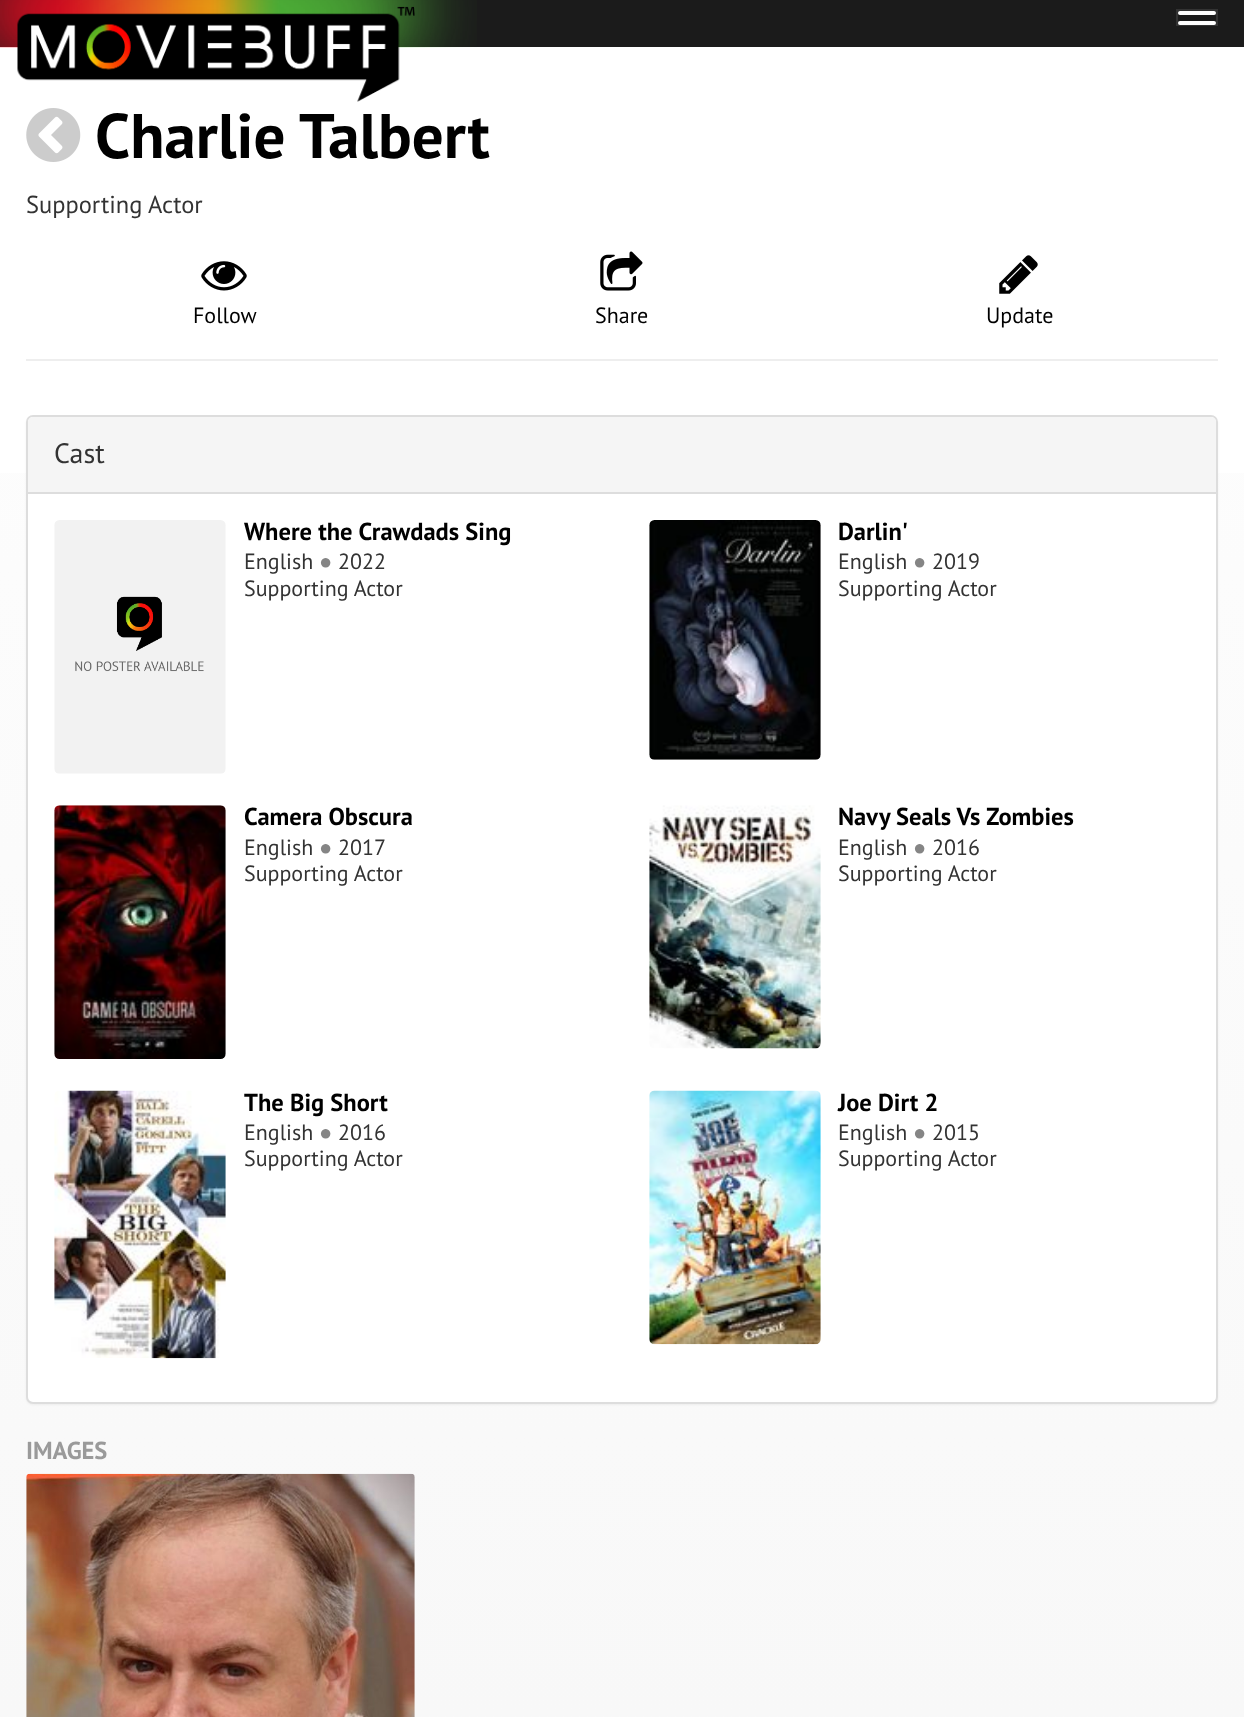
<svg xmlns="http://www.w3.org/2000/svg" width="1244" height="1717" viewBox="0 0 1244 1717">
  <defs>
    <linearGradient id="g1" gradientUnits="userSpaceOnUse" x1="622" y1="0" x2="622" y2="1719"><stop offset="0" stop-color="rgb(255,255,255)"/><stop offset="0.33" stop-color="rgb(252,252,252)"/><stop offset="0.67" stop-color="rgb(250,250,250)"/><stop offset="1" stop-color="rgb(248,248,248)"/></linearGradient>
  </defs>
  <rect width="100%" height="100%" fill="rgb(255,255,255)"/>
  <rect x="0" y="473" width="1244" height="1244" fill="url(#g1)"/>
  <rect x="0" y="0" width="1244" height="47" fill="rgb(27,27,27)"/>
  <image x="0" y="0" width="477" height="48" href="pic1.png"/>
  <image x="17" y="6" width="398" height="96" href="pic2.png"/>
  <rect x="1177" y="10" width="40" height="15" fill="none" stroke="rgb(51,51,51)" stroke-width="2"/>
  <rect x="1178" y="11" width="38" height="4" rx="2" fill="rgb(255,255,255)"/>
  <rect x="1178" y="21" width="38" height="4" rx="2" fill="rgb(255,255,255)"/>
  <image x="26" y="108" width="55" height="54" href="pic3.png"/>
  <text x="95" y="158" font-family="PT Sans" font-size="63" font-weight="bold" fill="rgb(0,0,0)">Charlie Talbert</text>
  <text x="26" y="213" font-family="PT Sans" font-size="24.5" fill="rgb(51,51,51)">Supporting Actor</text>
  <image x="201" y="261" width="46" height="30" href="pic4.png"/>
  <text x="193" y="323" font-family="PT Sans" font-size="22" fill="rgb(0,0,0)">Follow</text>
  <image x="600" y="251" width="43" height="40" href="pic5.png"/>
  <text x="595" y="323" font-family="PT Sans" font-size="22" fill="rgb(0,0,0)">Share</text>
  <image x="999" y="255" width="39" height="39" href="pic6.png"/>
  <text x="986" y="323" font-family="PT Sans" font-size="22" fill="rgb(0,0,0)">Update</text>
  <rect x="26" y="359" width="1192" height="2" fill="rgb(238,238,238)"/>
  <rect x="26" y="417" width="1192" height="988" rx="7" fill="rgba(0,0,0,0.05)" filter="blur(1px)"/>
  <rect x="27" y="416" width="1190" height="987" rx="6" fill="rgb(255,255,255)" stroke="rgb(221,221,221)" stroke-width="2"/>
  <path d="M33 417H1211C1214 417 1216 419 1216 422V494H28V422C28 419 30 417 33 417Z" fill="rgb(245,245,245)"/>
  <rect x="28" y="492" width="1188" height="2" fill="rgb(221,221,221)"/>
  <text x="54" y="463" font-family="PT Sans" font-size="28" fill="rgb(51,51,51)">Cast</text>
  <image x="54" y="520" width="172" height="254" href="pic7.png"/>
  <text x="244" y="540" font-family="PT Sans" font-size="24.5" font-weight="bold" fill="rgb(0,0,0)">Where the Crawdads Sing</text>
  <text x="244" y="569" font-family="PT Sans" font-size="22" fill="rgb(51,51,51)">English</text>
  <text x="319" y="569" font-family="Liberation Serif" font-size="22" fill="rgb(133,133,133)">●</text>
  <g font-family="PT Sans" font-size="22" fill="rgb(51,51,51)">
    <text x="338" y="569">2022</text>
    <text x="244" y="596">Supporting Actor</text>
  </g>
  <image x="649" y="520" width="172" height="240" href="pic8.png"/>
  <text x="838" y="540" font-family="PT Sans" font-size="24.5" font-weight="bold" fill="rgb(0,0,0)">Darlin'</text>
  <text x="838" y="569" font-family="PT Sans" font-size="22" fill="rgb(51,51,51)">English</text>
  <text x="913" y="569" font-family="Liberation Serif" font-size="22" fill="rgb(133,133,133)">●</text>
  <g font-family="PT Sans" font-size="22" fill="rgb(51,51,51)">
    <text x="932" y="569">2019</text>
    <text x="838" y="596">Supporting Actor</text>
  </g>
  <image x="54" y="805" width="172" height="254" href="pic9.png"/>
  <text x="244" y="825" font-family="PT Sans" font-size="24.5" font-weight="bold" fill="rgb(0,0,0)">Camera Obscura</text>
  <text x="244" y="855" font-family="PT Sans" font-size="22" fill="rgb(51,51,51)">English</text>
  <text x="319" y="855" font-family="Liberation Serif" font-size="22" fill="rgb(133,133,133)">●</text>
  <g font-family="PT Sans" font-size="22" fill="rgb(51,51,51)">
    <text x="338" y="855">2017</text>
    <text x="244" y="881">Supporting Actor</text>
  </g>
  <image x="649" y="805" width="172" height="244" href="pic10.png"/>
  <text x="838" y="825" font-family="PT Sans" font-size="24.5" font-weight="bold" fill="rgb(0,0,0)">Navy Seals Vs Zombies</text>
  <text x="838" y="855" font-family="PT Sans" font-size="22" fill="rgb(51,51,51)">English</text>
  <text x="913" y="855" font-family="Liberation Serif" font-size="22" fill="rgb(133,133,133)">●</text>
  <g font-family="PT Sans" font-size="22" fill="rgb(51,51,51)">
    <text x="932" y="855">2016</text>
    <text x="838" y="881">Supporting Actor</text>
  </g>
  <image x="54" y="1090" width="172" height="269" href="pic11.png"/>
  <text x="244" y="1111" font-family="PT Sans" font-size="24.5" font-weight="bold" fill="rgb(0,0,0)">The Big Short</text>
  <text x="244" y="1140" font-family="PT Sans" font-size="22" fill="rgb(51,51,51)">English</text>
  <text x="319" y="1140" font-family="Liberation Serif" font-size="22" fill="rgb(133,133,133)">●</text>
  <g font-family="PT Sans" font-size="22" fill="rgb(51,51,51)">
    <text x="338" y="1140">2016</text>
    <text x="244" y="1166">Supporting Actor</text>
  </g>
  <image x="649" y="1090" width="172" height="255" href="pic12.png"/>
  <text x="838" y="1111" font-family="PT Sans" font-size="24.5" font-weight="bold" fill="rgb(0,0,0)">Joe Dirt 2</text>
  <text x="838" y="1140" font-family="PT Sans" font-size="22" fill="rgb(51,51,51)">English</text>
  <text x="913" y="1140" font-family="Liberation Serif" font-size="22" fill="rgb(133,133,133)">●</text>
  <g font-family="PT Sans" font-size="22" fill="rgb(51,51,51)">
    <text x="932" y="1140">2015</text>
    <text x="838" y="1166">Supporting Actor</text>
  </g>
  <text x="26" y="1459" font-family="PT Sans" font-size="24.5" font-weight="bold" fill="rgb(154,154,154)">IMAGES</text>
  <image x="26" y="1473" width="389" height="244" href="pic13.png"/>
</svg>
